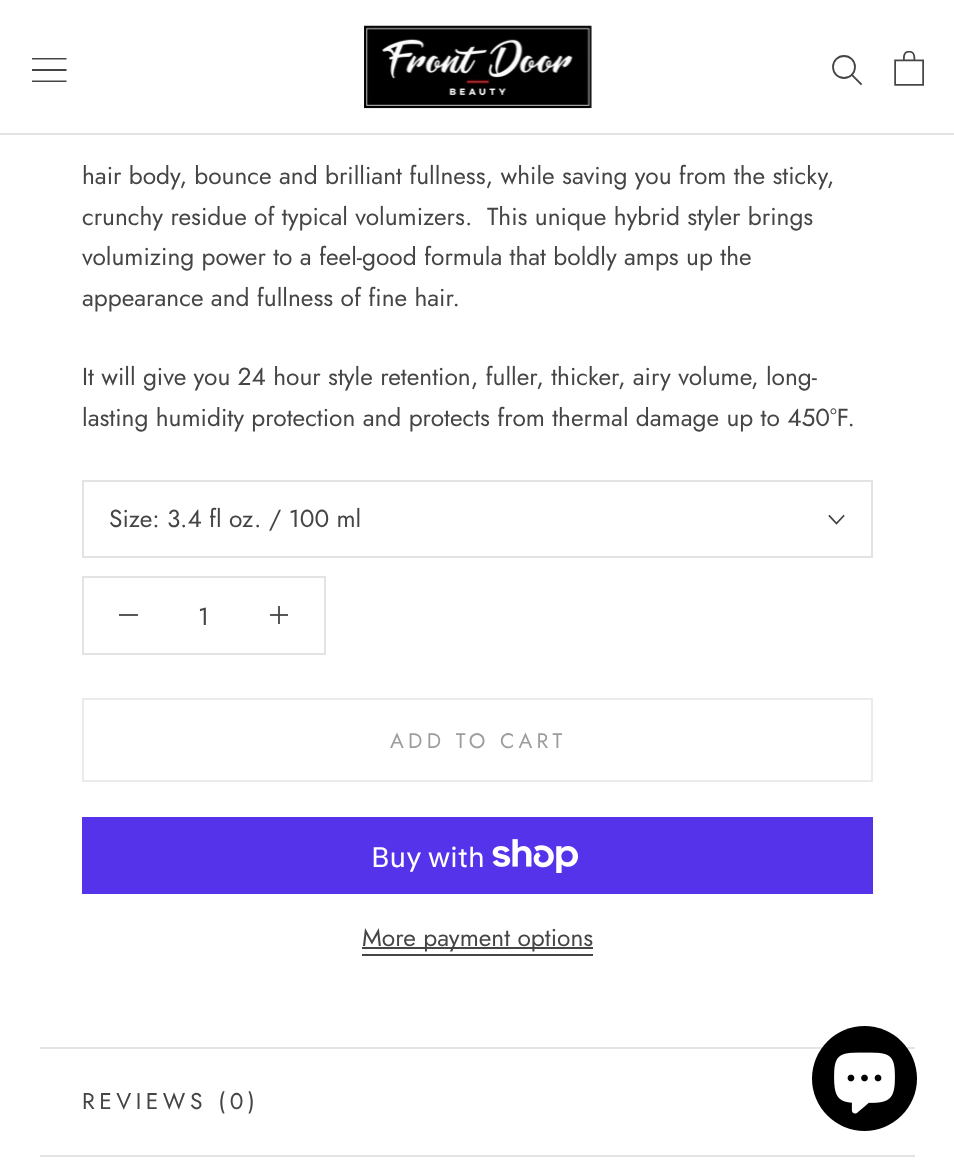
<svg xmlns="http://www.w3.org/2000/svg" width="954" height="1167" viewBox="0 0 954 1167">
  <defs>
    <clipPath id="clip1"><rect x="32" y="58" width="35" height="24"/></clipPath>
  </defs>
  <rect width="100%" height="100%" fill="rgb(255,255,255)"/>
  <rect x="270" y="614" width="18" height="2" fill="rgb(88,88,88)"/>
  <rect x="0" y="133" width="954" height="2" fill="rgb(227,227,227)"/>
  <g clip-path="url(#clip1)">
    <path d="M31.5 82V80.5H66.5V82ZM31.5 69H66.5V71H31.5ZM31.5 58H66.5V59.5H31.5Z" fill="rgb(69,69,69)"/>
  </g>
  <image x="364" y="25" width="228" height="84" href="pic1.png"/>
  <path d="M861 84L852 75" fill="none" stroke="rgb(69,69,69)" stroke-width="1.8" stroke-linecap="square"/>
  <circle cx="844" cy="67" r="11" fill="none" stroke="rgb(69,69,69)" stroke-width="1.8"/>
  <image x="894" y="51" width="30" height="35" href="pic2.png"/>
  <g font-family="Jost" font-size="24.5" fill="rgb(69,69,69)">
    <text xml:space="preserve"><tspan x="82" y="184">hair body, bounce and brilliant fullness, while saving you from the sticky,</tspan><tspan x="82" y="225">crunchy residue of typical volumizers.  This unique hybrid styler brings</tspan><tspan x="82" y="265">volumizing power to a feel-good formula that boldly amps up the</tspan><tspan x="82" y="306">appearance and fullness of fine hair.</tspan></text>
    <text>
      <tspan x="82" y="385">It will give you 24 hour style retention, fuller, thicker, airy volume, long-</tspan>
      <tspan x="82" y="426">lasting humidity protection and protects from thermal damage up to 450°F.</tspan>
    </text>
  </g>
  <rect x="83" y="481" width="789" height="76" fill="none" stroke="rgb(227,227,227)" stroke-width="2"/>
  <text x="109" y="527" font-family="Jost" font-size="24.5" fill="rgb(69,69,69)">Size: 3.4 fl oz. / 100 ml</text>
  <path d="M843.5 516L836.5 523.5L829.5 516" fill="none" stroke="rgb(69,69,69)" stroke-width="1.8" stroke-linecap="square"/>
  <rect x="83" y="577" width="242" height="77" fill="none" stroke="rgb(227,227,227)" stroke-width="2"/>
  <rect x="119" y="614" width="19" height="2" fill="rgb(88,88,88)"/>
  <text x="198" y="625" font-family="Jost" font-size="24.5" fill="rgb(69,69,69)">1</text>
  <rect x="278" y="606" width="2" height="18" fill="rgb(88,88,88)"/>
  <rect x="278" y="614" width="2" height="2" fill="rgb(71,71,71)"/>
  <rect x="83" y="699" width="789" height="82" fill="none" stroke="rgb(235,235,235)" stroke-width="2"/>
  <text x="390" y="748" font-family="Jost" font-size="21" letter-spacing="4.25" fill="rgb(157,157,157)">ADD TO CART</text>
  <rect x="82" y="817" width="791" height="77" fill="rgb(84,51,235)"/>
  <text x="371" y="867" font-family="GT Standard" font-size="28" fill="rgb(255,255,255)">Buy with</text>
  <image x="492" y="839" width="86" height="34" href="pic3.png"/>
  <rect x="362" y="947" width="231" height="2" fill="rgb(69,69,69)"/>
  <text x="362" y="946" font-family="Jost" font-size="24.5" fill="rgb(69,69,69)">More payment options</text>
  <rect x="362" y="954" width="231" height="2" fill="rgb(69,69,69)"/>
  <rect x="40" y="1047" width="875" height="2" fill="rgb(227,227,227)"/>
  <rect x="40" y="1155" width="875" height="2" fill="rgb(227,227,227)"/>
  <text x="82" y="1109" font-family="Jost" font-size="22.75" letter-spacing="4.5" fill="rgb(69,69,69)">REVIEWS (0)</text>
  <circle cx="864.5" cy="1078.5" r="52.5" fill="rgb(0,0,0)"/>
  <image x="834" y="1052" width="61" height="62" href="pic4.png"/>
</svg>
